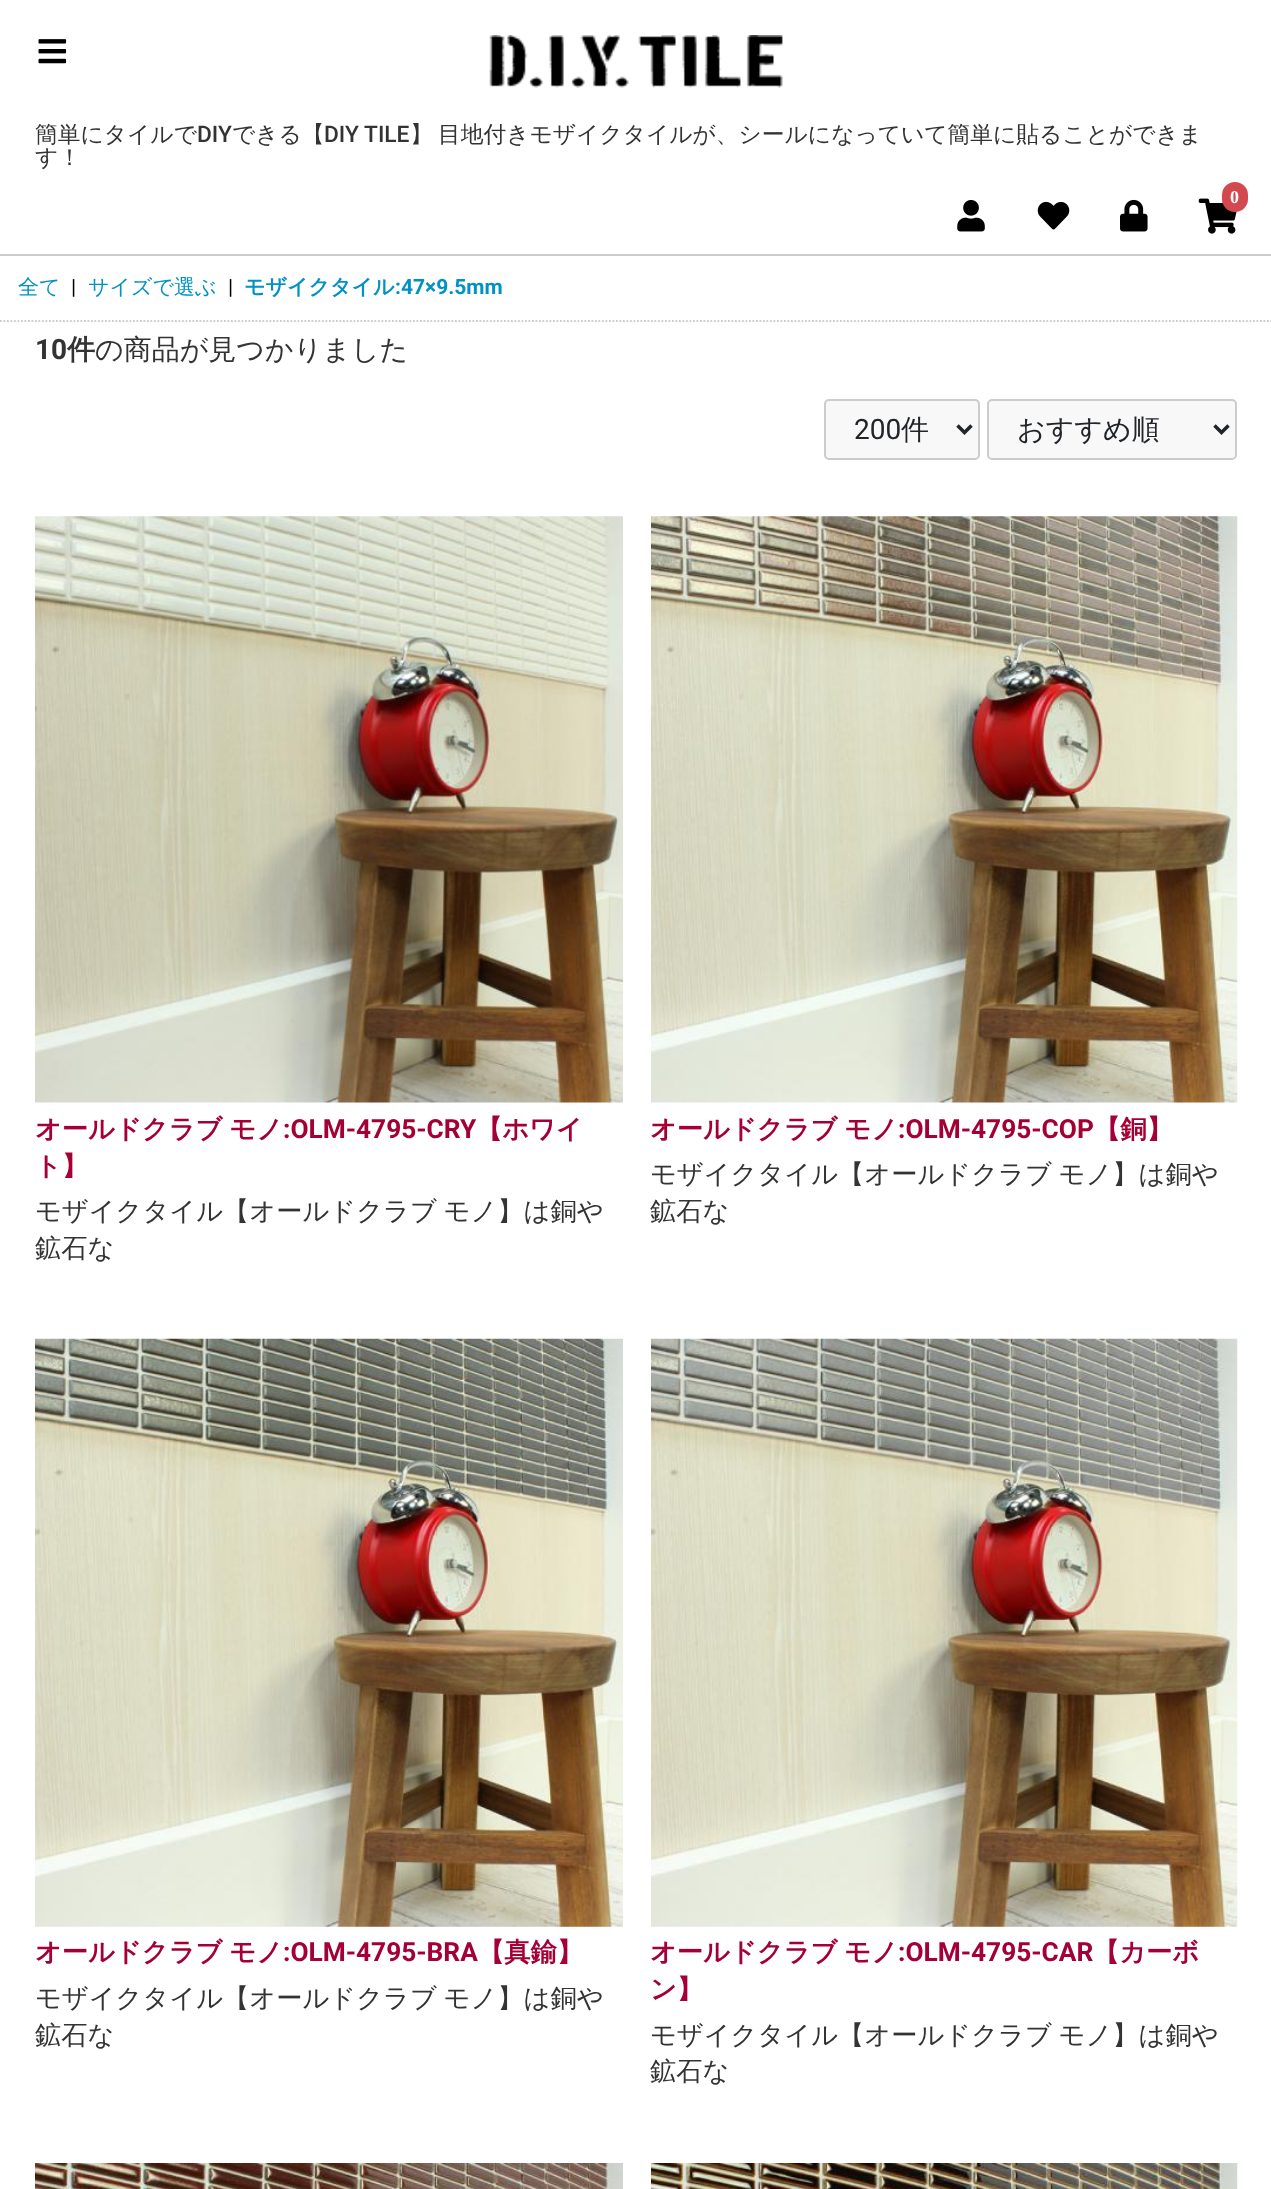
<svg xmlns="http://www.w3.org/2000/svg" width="1271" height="2189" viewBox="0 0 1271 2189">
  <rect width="100%" height="100%" fill="rgb(255,255,255)"/>
  <image x="489" y="35" width="294" height="53" href="pic1.png"/>
  <text x="35" y="142" font-family="WenQuanYi Zen Hei" font-size="22.75" font-weight="500" fill="rgb(51,51,51)">簡単にタイルで</text>
  <text x="197" y="142" font-family="Roboto" font-size="22.75" font-weight="500" fill="rgb(51,51,51)">DIY</text>
  <text x="232" y="142" font-family="WenQuanYi Zen Hei" font-size="22.75" font-weight="500" fill="rgb(51,51,51)">できる【</text>
  <text x="324" y="142" font-family="Roboto" font-size="22.75" font-weight="500" fill="rgb(51,51,51)">DIY TILE</text>
  <g font-family="WenQuanYi Zen Hei" font-size="22.75" font-weight="500" fill="rgb(51,51,51)">
    <text x="410" y="142">】</text>
    <text x="438" y="142">目地付きモザイクタイルが、シールになっていて簡単に貼ることができま</text>
    <text x="35" y="165">す！</text>
  </g>
  <image x="38" y="39" width="29" height="25" href="pic2.png"/>
  <image x="1198" y="198" width="39" height="36" href="pic3.png"/>
  <rect x="1222" y="182" width="26" height="30" rx="13" fill="rgb(212,73,80)"/>
  <text x="1230" y="203" font-family="Liberation Serif" font-size="18" font-weight="bold" fill="rgb(255,255,255)">0</text>
  <image x="957" y="200" width="28" height="32" href="pic4.png"/>
  <image x="1037" y="201" width="33" height="29" href="pic5.png"/>
  <image x="1120" y="199" width="28" height="33" href="pic6.png"/>
  <rect x="0" y="254" width="1271" height="2" fill="rgb(204,204,204)"/>
  <path d="M0 321H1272" fill="none" stroke="rgb(204,204,204)" stroke-width="1.8" stroke-dasharray="1.75 1.75"/>
  <text x="18" y="294" font-family="WenQuanYi Zen Hei" font-size="21" font-weight="500" fill="rgb(0,146,196)">全て</text>
  <text x="71" y="294" font-family="Roboto" font-size="21" fill="rgb(0,0,0)">|</text>
  <text x="88" y="294" font-family="WenQuanYi Zen Hei" font-size="21" font-weight="500" fill="rgb(0,146,196)">サイズで選ぶ</text>
  <text x="228" y="294" font-family="Roboto" font-size="21" fill="rgb(0,0,0)">|</text>
  <text x="244" y="294" font-family="WenQuanYi Zen Hei" font-size="21" font-weight="bold" fill="rgb(0,146,196)">モザイクタイル</text>
  <text x="395" y="294" font-family="Roboto" font-size="21" font-weight="bold" fill="rgb(0,146,196)">:47×9.5mm</text>
  <text x="35" y="359" font-family="Roboto" font-size="28" font-weight="bold" fill="rgb(51,51,51)">10</text>
  <text x="67" y="359" font-family="WenQuanYi Zen Hei" font-size="28" font-weight="bold" fill="rgb(51,51,51)">件</text>
  <text x="95" y="359" font-family="WenQuanYi Zen Hei" font-size="28" font-weight="500" fill="rgb(51,51,51)">の商品が見つかりました</text>
  <rect x="825" y="400" width="154" height="59" rx="4" fill="rgb(248,248,248)" stroke="rgb(204,204,204)" stroke-width="2"/>
  <path d="M957.5 425.5L964.5 432.5L971.5 425.5" fill="none" stroke="rgb(33,37,41)" stroke-width="3.5"/>
  <text x="854" y="439" font-family="Roboto" font-size="28" fill="rgb(33,37,41)">200</text>
  <text x="901" y="439" font-family="WenQuanYi Zen Hei" font-size="28" font-weight="500" fill="rgb(33,37,41)">件</text>
  <rect x="988" y="400" width="248" height="59" rx="4" fill="rgb(248,248,248)" stroke="rgb(204,204,204)" stroke-width="2"/>
  <path d="M1214.5 425.5L1221.5 432.5L1228.5 425.5" fill="none" stroke="rgb(33,37,41)" stroke-width="3.5"/>
  <text x="1017" y="439" font-family="WenQuanYi Zen Hei" font-size="28" font-weight="500" fill="rgb(33,37,41)">おすすめ順</text>
  <image x="35" y="516" width="588" height="587" href="pic7.png"/>
  <text x="35" y="1138" word-spacing="-1" font-family="WenQuanYi Zen Hei" font-size="26.25" font-weight="bold" fill="rgb(164,0,53)">オールドクラブ モノ</text>
  <text x="283" y="1138" font-family="Roboto" font-size="26.25" font-weight="bold" fill="rgb(164,0,53)">:OLM-4795-CRY</text>
  <g font-family="WenQuanYi Zen Hei" font-size="26.25" font-weight="bold" fill="rgb(164,0,53)">
    <text x="476" y="1138">【ホワイ</text>
    <text x="35" y="1175">ト】</text>
  </g>
  <g font-family="WenQuanYi Zen Hei" font-size="26.25" font-weight="500" fill="rgb(51,51,51)">
    <text>
      <tspan x="35" y="1220" word-spacing="-1">モザイクタイル【オールドクラブ モノ】は銅や</tspan>
      <tspan x="35" y="1257">鉱石な</tspan>
    </text>
  </g>
  <image x="651" y="516" width="587" height="587" href="pic8.png"/>
  <text x="650" y="1138" word-spacing="-1" font-family="WenQuanYi Zen Hei" font-size="26.25" font-weight="bold" fill="rgb(164,0,53)">オールドクラブ モノ</text>
  <text x="898" y="1138" font-family="Roboto" font-size="26.25" font-weight="bold" fill="rgb(164,0,53)">:OLM-4795-COP</text>
  <text x="1094" y="1138" font-family="WenQuanYi Zen Hei" font-size="26.25" font-weight="bold" fill="rgb(164,0,53)">【銅】</text>
  <g font-family="WenQuanYi Zen Hei" font-size="26.25" font-weight="500" fill="rgb(51,51,51)">
    <text>
      <tspan x="650" y="1183" word-spacing="-1">モザイクタイル【オールドクラブ モノ】は銅や</tspan>
      <tspan x="650" y="1220">鉱石な</tspan>
    </text>
  </g>
  <image x="35" y="1338" width="588" height="589" href="pic9.png"/>
  <text x="35" y="1961" word-spacing="-1" font-family="WenQuanYi Zen Hei" font-size="26.25" font-weight="bold" fill="rgb(164,0,53)">オールドクラブ モノ</text>
  <text x="283" y="1961" font-family="Roboto" font-size="26.25" font-weight="bold" fill="rgb(164,0,53)">:OLM-4795-BRA</text>
  <text x="478" y="1961" font-family="WenQuanYi Zen Hei" font-size="26.25" font-weight="bold" fill="rgb(164,0,53)">【真鍮】</text>
  <g font-family="WenQuanYi Zen Hei" font-size="26.25" font-weight="500" fill="rgb(51,51,51)">
    <text>
      <tspan x="35" y="2007" word-spacing="-1">モザイクタイル【オールドクラブ モノ】は銅や</tspan>
      <tspan x="35" y="2044">鉱石な</tspan>
    </text>
  </g>
  <image x="651" y="1338" width="587" height="589" href="pic10.png"/>
  <text x="650" y="1961" word-spacing="-1" font-family="WenQuanYi Zen Hei" font-size="26.25" font-weight="bold" fill="rgb(164,0,53)">オールドクラブ モノ</text>
  <text x="898" y="1961" font-family="Roboto" font-size="26.25" font-weight="bold" fill="rgb(164,0,53)">:OLM-4795-CAR</text>
  <g font-family="WenQuanYi Zen Hei" font-size="26.25" font-weight="bold" fill="rgb(164,0,53)">
    <text x="1093" y="1961">【カーボ</text>
    <text x="650" y="1998">ン】</text>
  </g>
  <g font-family="WenQuanYi Zen Hei" font-size="26.25" font-weight="500" fill="rgb(51,51,51)">
    <text>
      <tspan x="650" y="2044" word-spacing="-1">モザイクタイル【オールドクラブ モノ】は銅や</tspan>
      <tspan x="650" y="2080">鉱石な</tspan>
    </text>
  </g>
  <image x="35" y="2163" width="588" height="26" href="pic11.png"/>
  <image x="651" y="2163" width="587" height="26" href="pic12.png"/>
</svg>
